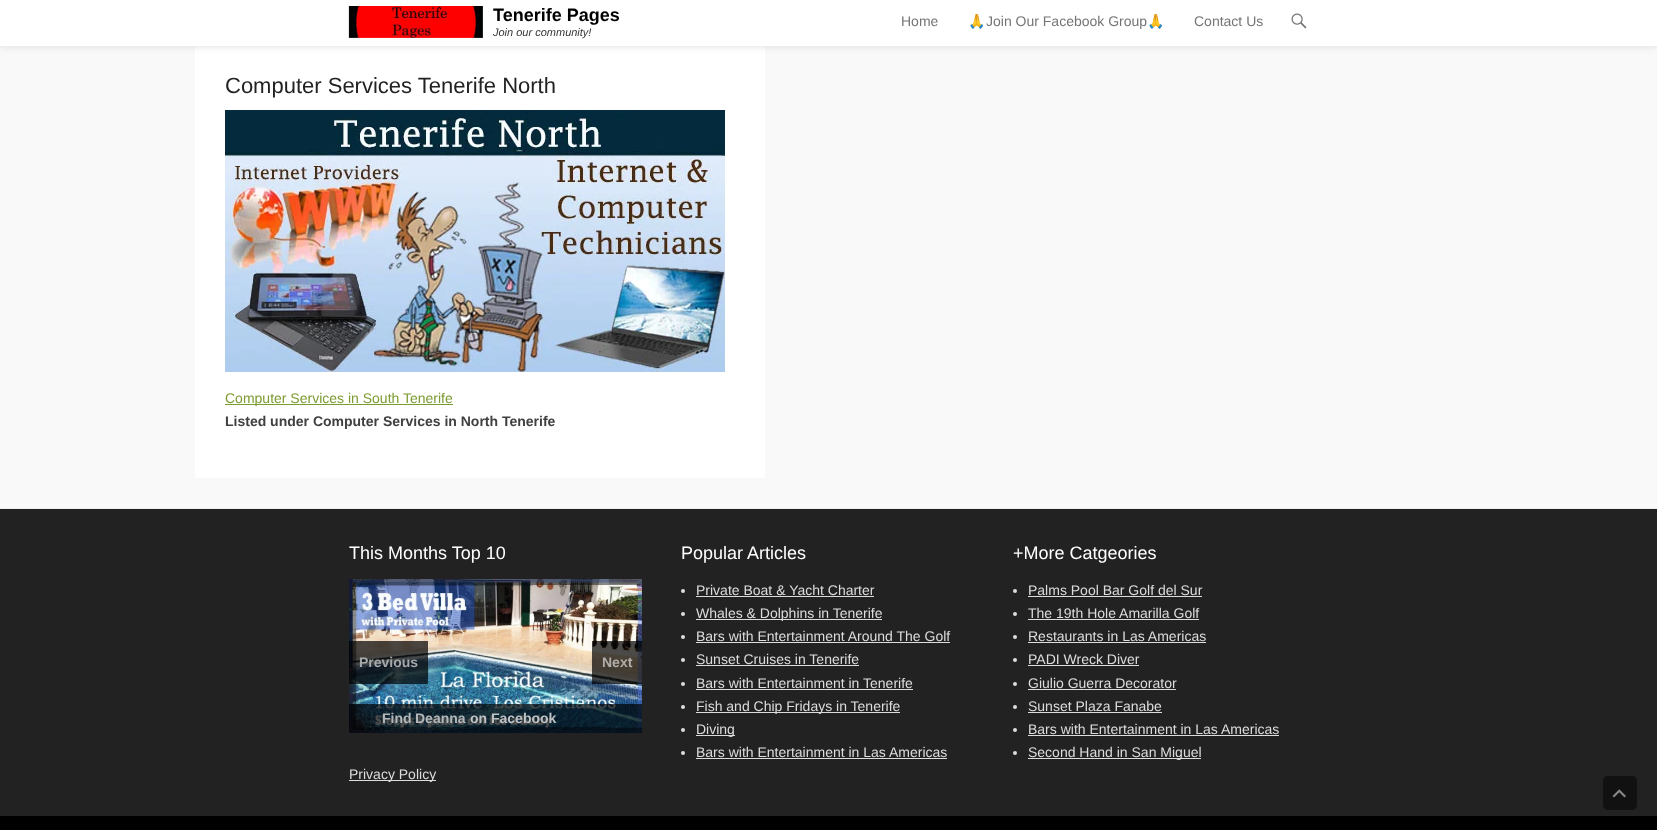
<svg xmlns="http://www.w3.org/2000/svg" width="1657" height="830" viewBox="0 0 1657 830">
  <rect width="100%" height="100%" fill="rgb(249,249,249)"/>
  <rect x="195" y="47" width="570" height="431" fill="rgb(255,255,255)"/>
  <rect x="0" y="0" width="1657" height="47" fill="rgba(0,0,0,0.1)" filter="blur(3.5px)"/>
  <rect x="0" y="0" width="1657" height="46" fill="rgb(255,255,255)"/>
  <rect x="0" y="46" width="1657" height="1" fill="rgb(238,238,238)"/>
  <image x="348" y="6" width="135" height="32" href="pic1.png"/>
  <text x="493" y="21" font-family="Liberation Sans" font-size="18" font-weight="bold" fill="rgb(0,0,0)">Tenerife Pages</text>
  <text x="493" y="36" font-family="Liberation Sans" font-size="11" font-style="italic" fill="rgb(51,51,51)">Join our community!</text>
  <text x="901" y="26" font-family="Liberation Sans" font-size="14" fill="rgb(117,117,117)">Home</text>
  <text x="968" y="26" font-family="Noto Color Emoji" font-size="14" fill="rgb(117,117,117)">🙏</text>
  <text x="986" y="26" font-family="Liberation Sans" font-size="14" fill="rgb(117,117,117)">Join Our Facebook Group</text>
  <text x="1147" y="26" font-family="Noto Color Emoji" font-size="14" fill="rgb(117,117,117)">🙏</text>
  <text x="1194" y="26" font-family="Liberation Sans" font-size="14" fill="rgb(117,117,117)">Contact Us</text>
  <image x="1291" y="13" width="16" height="16" href="pic2.png"/>
  <text x="225" y="93" font-family="Liberation Sans" font-size="22" fill="rgb(34,34,34)">Computer Services Tenerife North</text>
  <image x="225" y="110" width="500" height="262" href="pic3.png"/>
  <rect x="225" y="404" width="228" height="1" fill="rgb(124,155,48)"/>
  <text x="225" y="403" font-family="Liberation Sans" font-size="14" fill="rgb(124,155,48)">Computer Services in South Tenerife</text>
  <text x="225" y="426" font-family="Liberation Sans" font-size="14" font-weight="bold" fill="rgb(64,64,64)">Listed under Computer Services in North Tenerife</text>
  <rect x="0" y="508" width="1657" height="1" fill="rgb(238,238,238)"/>
  <rect x="0" y="509" width="1657" height="307" fill="rgb(34,34,34)"/>
  <text x="349" y="559" font-family="Liberation Sans" font-size="18" fill="rgb(255,255,255)">This Months Top 10</text>
  <image x="349" y="579" width="293" height="154" href="pic4.png"/>
  <rect x="349" y="641" width="79" height="43" fill="rgba(0,0,0,0.7)"/>
  <text x="359" y="667" font-family="Liberation Sans" font-size="14" font-weight="bold" fill="rgb(166,168,170)">Previous</text>
  <rect x="592" y="641" width="50" height="43" fill="rgba(0,0,0,0.7)"/>
  <text x="602" y="667" font-family="Liberation Sans" font-size="14" font-weight="bold" fill="rgb(176,173,170)">Next</text>
  <rect x="349" y="704" width="293" height="29" fill="rgba(0,0,0,0.7)"/>
  <g font-family="Liberation Sans" font-size="14" font-weight="bold" fill="rgb(177,183,186)">
    <text x="382" y="723">Find</text>
    <text x="415" y="723">Deanna</text>
  </g>
  <text x="470" y="723" font-family="Liberation Sans" font-size="14" font-weight="bold" fill="rgb(190,194,196)">on Facebook</text>
  <rect x="349" y="780" width="87" height="1" fill="rgb(221,221,221)"/>
  <text x="349" y="779" font-family="Liberation Sans" font-size="14" fill="rgb(221,221,221)">Privacy Policy</text>
  <text x="681" y="559" font-family="Liberation Sans" font-size="18" fill="rgb(255,255,255)">Popular Articles</text>
  <circle cx="683" cy="591" r="2" fill="rgb(221,221,221)"/>
  <text x="696" y="595" font-family="Liberation Sans" font-size="14" fill="rgb(221,221,221)">Private Boat &amp; Yacht Charter</text>
  <rect x="696" y="596" width="178" height="1" fill="rgb(221,221,221)"/>
  <circle cx="683" cy="614" r="2" fill="rgb(221,221,221)"/>
  <rect x="696" y="619" width="186" height="1" fill="rgb(221,221,221)"/>
  <text x="696" y="618" font-family="Liberation Sans" font-size="14" fill="rgb(221,221,221)">Whales &amp; Dolphins in Tenerife</text>
  <circle cx="683" cy="637" r="2" fill="rgb(221,221,221)"/>
  <text x="696" y="641" font-family="Liberation Sans" font-size="14" fill="rgb(221,221,221)">Bars with Entertainment Around The Golf</text>
  <rect x="696" y="642" width="254" height="1" fill="rgb(221,221,221)"/>
  <circle cx="683" cy="660" r="2" fill="rgb(221,221,221)"/>
  <text x="696" y="664" font-family="Liberation Sans" font-size="14" fill="rgb(221,221,221)">Sunset Cruises in Tenerife</text>
  <rect x="696" y="665" width="163" height="1" fill="rgb(221,221,221)"/>
  <circle cx="683" cy="684" r="2" fill="rgb(221,221,221)"/>
  <text x="696" y="688" font-family="Liberation Sans" font-size="14" fill="rgb(221,221,221)">Bars with Entertainment in Tenerife</text>
  <rect x="696" y="689" width="217" height="1" fill="rgb(221,221,221)"/>
  <circle cx="683" cy="707" r="2" fill="rgb(221,221,221)"/>
  <rect x="696" y="712" width="204" height="1" fill="rgb(221,221,221)"/>
  <text x="696" y="711" font-family="Liberation Sans" font-size="14" fill="rgb(221,221,221)">Fish and Chip Fridays in Tenerife</text>
  <circle cx="683" cy="730" r="2" fill="rgb(221,221,221)"/>
  <rect x="696" y="735" width="39" height="1" fill="rgb(221,221,221)"/>
  <text x="696" y="734" font-family="Liberation Sans" font-size="14" fill="rgb(221,221,221)">Diving</text>
  <circle cx="683" cy="753" r="2" fill="rgb(221,221,221)"/>
  <text x="696" y="757" font-family="Liberation Sans" font-size="14" fill="rgb(221,221,221)">Bars with Entertainment in Las Americas</text>
  <rect x="696" y="758" width="251" height="1" fill="rgb(221,221,221)"/>
  <text x="1013" y="559" font-family="Liberation Sans" font-size="18" fill="rgb(255,255,255)">+More Catgeories</text>
  <circle cx="1015" cy="591" r="2" fill="rgb(221,221,221)"/>
  <text x="1028" y="595" font-family="Liberation Sans" font-size="14" fill="rgb(221,221,221)">Palms Pool Bar Golf del Sur</text>
  <rect x="1028" y="596" width="174" height="1" fill="rgb(221,221,221)"/>
  <circle cx="1015" cy="614" r="2" fill="rgb(221,221,221)"/>
  <text x="1028" y="618" font-family="Liberation Sans" font-size="14" fill="rgb(221,221,221)">The 19th Hole Amarilla Golf</text>
  <rect x="1028" y="619" width="171" height="1" fill="rgb(221,221,221)"/>
  <circle cx="1015" cy="637" r="2" fill="rgb(221,221,221)"/>
  <text x="1028" y="641" font-family="Liberation Sans" font-size="14" fill="rgb(221,221,221)">Restaurants in Las Americas</text>
  <rect x="1028" y="642" width="178" height="1" fill="rgb(221,221,221)"/>
  <circle cx="1015" cy="660" r="2" fill="rgb(221,221,221)"/>
  <text x="1028" y="664" font-family="Liberation Sans" font-size="14" fill="rgb(221,221,221)">PADI Wreck Diver</text>
  <rect x="1028" y="665" width="111" height="1" fill="rgb(221,221,221)"/>
  <circle cx="1015" cy="684" r="2" fill="rgb(221,221,221)"/>
  <text x="1028" y="688" font-family="Liberation Sans" font-size="14" fill="rgb(221,221,221)">Giulio Guerra Decorator</text>
  <rect x="1028" y="689" width="148" height="1" fill="rgb(221,221,221)"/>
  <circle cx="1015" cy="707" r="2" fill="rgb(221,221,221)"/>
  <text x="1028" y="711" font-family="Liberation Sans" font-size="14" fill="rgb(221,221,221)">Sunset Plaza Fanabe</text>
  <rect x="1028" y="712" width="134" height="1" fill="rgb(221,221,221)"/>
  <circle cx="1015" cy="730" r="2" fill="rgb(221,221,221)"/>
  <text x="1028" y="734" font-family="Liberation Sans" font-size="14" fill="rgb(221,221,221)">Bars with Entertainment in Las Americas</text>
  <rect x="1028" y="735" width="251" height="1" fill="rgb(221,221,221)"/>
  <circle cx="1015" cy="753" r="2" fill="rgb(221,221,221)"/>
  <rect x="1028" y="758" width="173" height="1" fill="rgb(221,221,221)"/>
  <text x="1028" y="757" font-family="Liberation Sans" font-size="14" fill="rgb(221,221,221)">Second Hand in San Miguel</text>
  <rect x="0" y="816" width="1657" height="14" fill="rgb(0,0,0)"/>
  <rect x="1603" y="776" width="34" height="34" rx="5" fill="rgb(17,17,17)"/>
  <image x="1612" y="789" width="14" height="9" href="pic5.png"/>
</svg>
